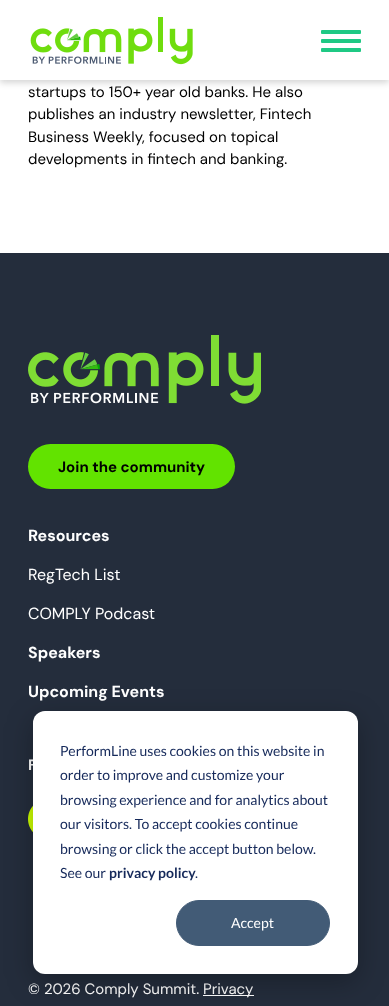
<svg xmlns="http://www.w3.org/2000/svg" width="389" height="1006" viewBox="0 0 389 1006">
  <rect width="100%" height="100%" fill="rgb(255,255,255)"/>
  <rect x="0" y="3" width="389" height="80" fill="rgba(0,0,0,0.16)" filter="blur(3px)"/>
  <rect x="0" y="0" width="389" height="80" fill="rgb(255,255,255)"/>
  <image x="30" y="17" width="163" height="48" href="pic1.png"/>
  <rect x="321" y="30" width="40" height="4" rx="1" fill="rgb(31,201,132)"/>
  <rect x="321" y="39" width="40" height="4" rx="1" fill="rgb(31,201,132)"/>
  <rect x="321" y="48" width="40" height="4" rx="1" fill="rgb(31,201,132)"/>
  <g font-family="DM Sans" font-size="15" fill="rgb(0,0,0)">
    <text>
      <tspan x="28" y="97">startups to 150+ year old banks. He also</tspan>
      <tspan x="28" y="119">publishes an industry newsletter, Fintech</tspan>
      <tspan x="28" y="142">Business Weekly, focused on topical</tspan>
      <tspan x="28" y="164">developments in fintech and banking.</tspan>
    </text>
  </g>
  <rect x="0" y="253" width="389" height="753" fill="rgb(36,45,60)"/>
  <image x="28" y="335" width="233" height="69" href="pic2.png"/>
  <rect x="28" y="444" width="207" height="45" rx="22.5" fill="rgb(98,227,0)"/>
  <text x="58" y="472" font-family="DM Sans" font-size="15" font-weight="bold" fill="rgb(0,0,0)">Join the community</text>
  <text x="28" y="541" font-family="DM Sans" font-size="16" font-weight="bold" fill="rgb(255,255,255)">Resources</text>
  <g font-family="DM Sans" font-size="16" fill="rgb(255,255,255)">
    <text x="28" y="580">RegTech List</text>
    <text x="28" y="619">COMPLY Podcast</text>
  </g>
  <g font-family="DM Sans" font-size="16" font-weight="bold" fill="rgb(255,255,255)">
    <text x="28" y="658">Speakers</text>
    <text x="28" y="697">Upcoming Events</text>
  </g>
  <text x="28" y="770" font-family="DM Sans" font-size="15" font-weight="bold" fill="rgb(255,255,255)">F</text>
  <image x="28" y="806" width="5" height="26" href="pic3.png"/>
  <text x="28" y="994" font-family="DM Sans" font-size="15" fill="rgb(255,255,255)">© 2026 Comply Summit.</text>
  <rect x="203" y="995" width="51" height="1" fill="rgb(255,255,255)"/>
  <text x="203" y="994" font-family="DM Sans" font-size="15" fill="rgb(255,255,255)">Privacy</text>
  <rect x="33" y="719" width="325" height="263" rx="12" fill="rgba(0,0,0,0.28)" filter="blur(14px)"/>
  <rect x="33" y="711" width="325" height="263" rx="12" fill="rgb(255,255,255)"/>
  <g font-family="Lato" font-size="14" fill="rgb(21,41,90)">
    <text>
      <tspan x="60" y="756">PerformLine uses cookies on this website in</tspan>
      <tspan x="60" y="780">order to improve and customize your</tspan>
      <tspan x="60" y="805">browsing experience and for analytics about</tspan>
      <tspan x="60" y="829">our visitors. To accept cookies continue</tspan>
      <tspan x="60" y="854">browsing or click the accept button below.</tspan>
      <tspan x="60" y="878">See our</tspan>
    </text>
  </g>
  <text x="109" y="878" font-family="Lato" font-size="14" font-weight="bold" fill="rgb(21,41,90)">privacy policy</text>
  <text x="195" y="878" font-family="Lato" font-size="14" fill="rgb(21,41,90)">.</text>
  <rect x="176.5" y="900.5" width="153" height="45" rx="22.5" fill="rgb(66,91,118)" stroke="rgb(66,91,118)"/>
  <text x="231" y="928" font-family="Lato" font-size="14" fill="rgb(255,255,255)">Accept</text>
</svg>
